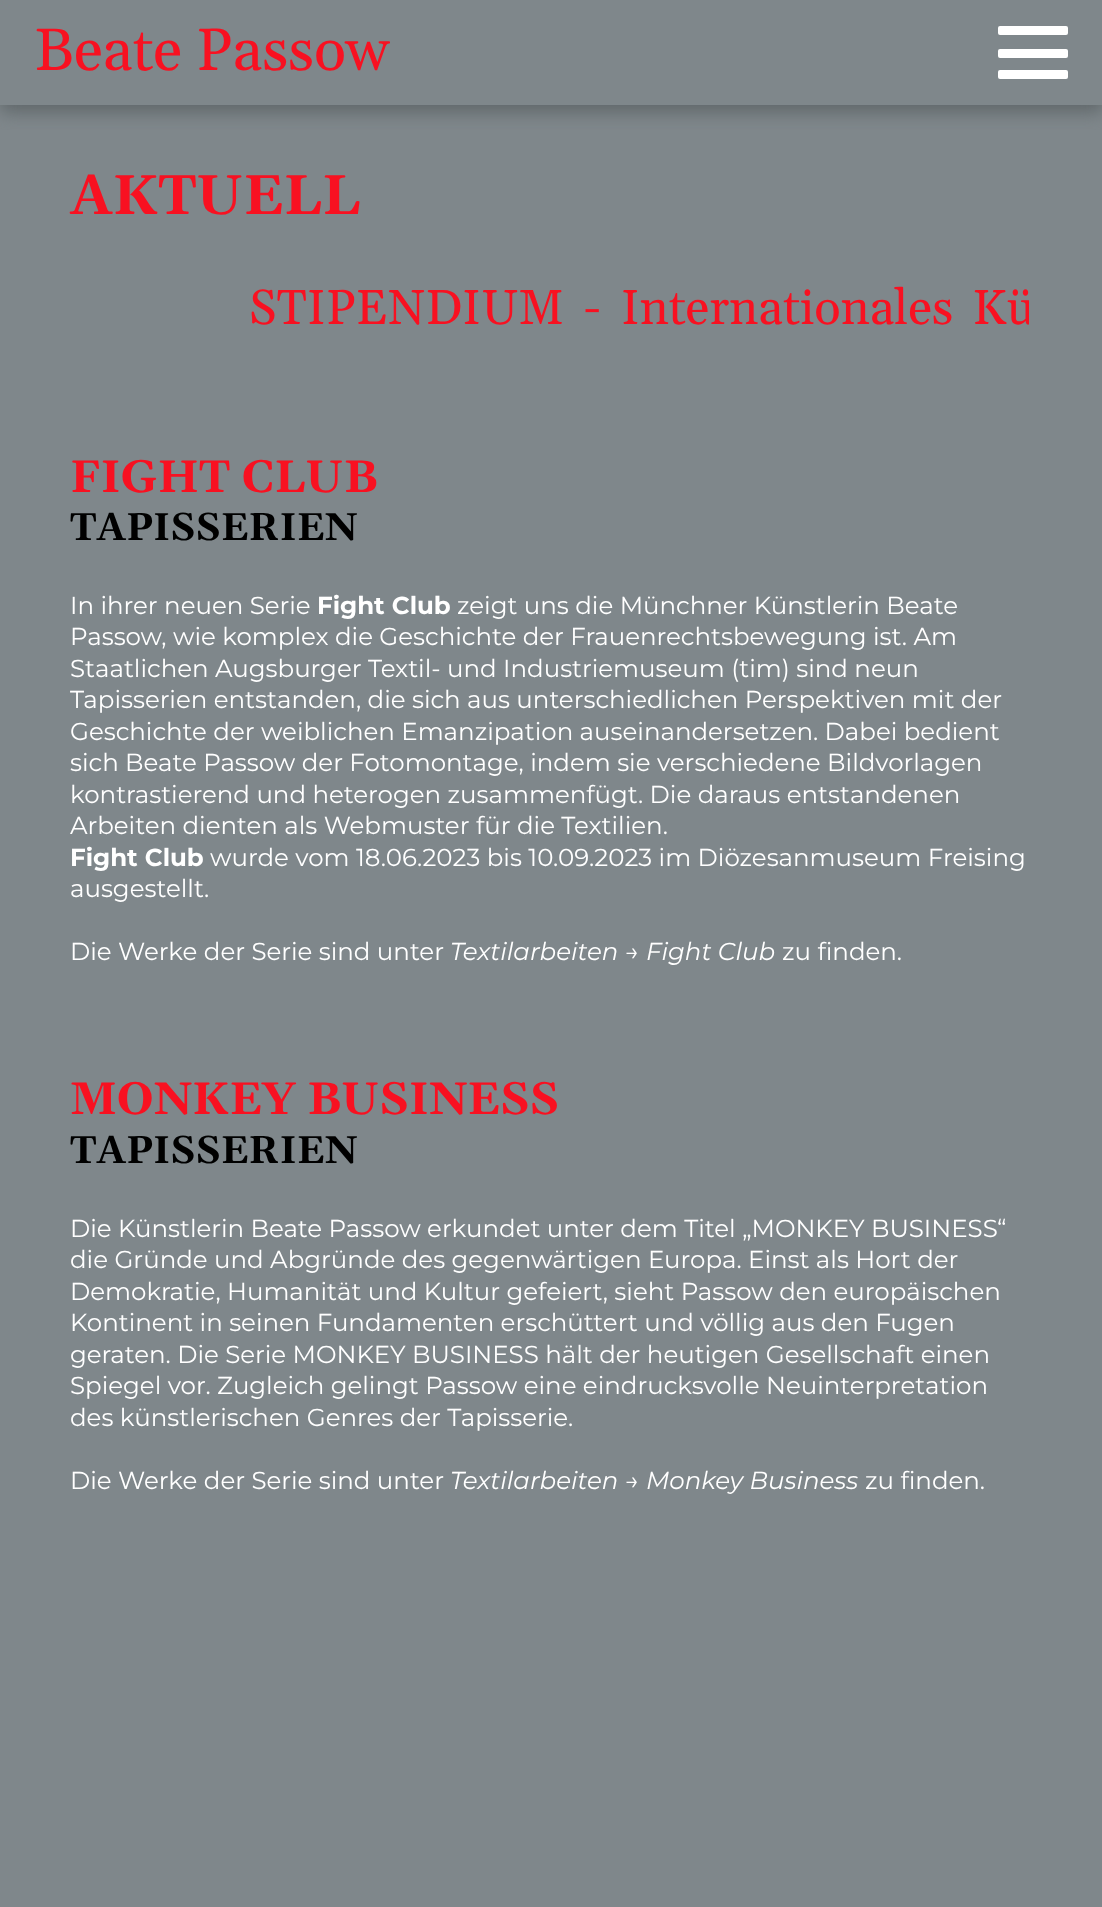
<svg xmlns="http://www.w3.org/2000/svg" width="1102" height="1907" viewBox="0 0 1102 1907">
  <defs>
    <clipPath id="clip1"><rect x="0" y="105" width="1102" height="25"/></clipPath>
    <clipPath id="clip2"><rect x="74" y="275" width="955" height="70"/></clipPath>
  </defs>
  <rect width="100%" height="100%" fill="rgb(127,135,139)"/>
  <g clip-path="url(#clip1)">
    <rect x="0" y="7" width="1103" height="105" fill="rgb(95,102,105)" filter="blur(9px)"/>
  </g>
  <text x="35" y="70" font-family="Gelasio" font-size="59.5" fill="rgb(248,17,33)">Beate Passow</text>
  <rect x="998" y="26" width="70" height="9" rx="2" fill="rgb(255,255,255)"/>
  <rect x="998" y="49" width="70" height="9" rx="2" fill="rgb(255,255,255)"/>
  <rect x="998" y="70" width="70" height="9" rx="2" fill="rgb(255,255,255)"/>
  <text x="70" y="214" font-family="Gelasio" font-size="56" font-weight="bold" fill="rgb(248,17,33)">AKTUELL</text>
  <g clip-path="url(#clip2)">
    <text x="249" y="324" word-spacing="7.5" font-family="Gelasio" font-size="49" fill="rgb(248,17,33)">STIPENDIUM - Internationales Kü</text>
  </g>
  <text x="70" y="492" font-family="Gelasio" font-size="45.5" font-weight="bold" fill="rgb(248,17,33)">FIGHT CLUB</text>
  <text x="70" y="540" font-family="Gelasio" font-size="38.75" font-weight="bold" fill="rgb(0,0,0)">TAPISSERIEN</text>
  <text x="70" y="614" font-family="Montserrat" font-size="24.5" fill="rgb(255,255,255)">In ihrer neuen Serie</text>
  <text x="317" y="614" font-family="Montserrat" font-size="24.5" font-weight="bold" fill="rgb(255,255,255)">Fight Club</text>
  <g font-family="Montserrat" font-size="24.5" fill="rgb(255,255,255)">
    <text x="457" y="614">zeigt uns die Münchner Künstlerin Beate</text>
    <text>
      <tspan x="70" y="645">Passow, wie komplex die Geschichte der Frauenrechtsbewegung ist. Am</tspan>
      <tspan x="70" y="677">Staatlichen Augsburger Textil- und Industriemuseum (tim) sind neun</tspan>
      <tspan x="70" y="708">Tapisserien entstanden, die sich aus unterschiedlichen Perspektiven mit der</tspan>
      <tspan x="70" y="740">Geschichte der weiblichen Emanzipation auseinandersetzen. Dabei bedient</tspan>
      <tspan x="70" y="771">sich Beate Passow der Fotomontage, indem sie verschiedene Bildvorlagen</tspan>
      <tspan x="70" y="803">kontrastierend und heterogen zusammenfügt. Die daraus entstandenen</tspan>
      <tspan x="70" y="834">Arbeiten dienten als Webmuster für die Textilien.</tspan>
    </text>
  </g>
  <text x="70" y="866" font-family="Montserrat" font-size="24.5" font-weight="bold" fill="rgb(255,255,255)">Fight Club</text>
  <g font-family="Montserrat" font-size="24.5" fill="rgb(255,255,255)">
    <text x="210" y="866">wurde vom 18.06.2023 bis 10.09.2023 im Diözesanmuseum Freising</text>
    <text x="70" y="897">ausgestellt.</text>
    <text x="70" y="960">Die Werke der Serie sind unter</text>
  </g>
  <text x="450" y="960" font-family="Montserrat" font-size="24.5" font-style="italic" fill="rgb(255,255,255)">Textilarbeiten → Fight Club</text>
  <text x="782" y="960" font-family="Montserrat" font-size="24.5" fill="rgb(255,255,255)">zu finden.</text>
  <text x="70" y="1114" font-family="Gelasio" font-size="45.5" font-weight="bold" fill="rgb(248,17,33)">MONKEY BUSINESS</text>
  <text x="70" y="1163" font-family="Gelasio" font-size="38.75" font-weight="bold" fill="rgb(0,0,0)">TAPISSERIEN</text>
  <g font-family="Montserrat" font-size="24.5" fill="rgb(255,255,255)">
    <text>
      <tspan x="70" y="1237">Die Künstlerin Beate Passow erkundet unter dem Titel „MONKEY BUSINESS“</tspan>
      <tspan x="70" y="1268">die Gründe und Abgründe des gegenwärtigen Europa. Einst als Hort der</tspan>
      <tspan x="70" y="1300">Demokratie, Humanität und Kultur gefeiert, sieht Passow den europäischen</tspan>
      <tspan x="70" y="1331">Kontinent in seinen Fundamenten erschüttert und völlig aus den Fugen</tspan>
      <tspan x="70" y="1363">geraten. Die Serie MONKEY BUSINESS hält der heutigen Gesellschaft einen</tspan>
      <tspan x="70" y="1394">Spiegel vor. Zugleich gelingt Passow eine eindrucksvolle Neuinterpretation</tspan>
      <tspan x="70" y="1426">des künstlerischen Genres der Tapisserie.</tspan>
    </text>
    <text x="70" y="1489">Die Werke der Serie sind unter</text>
  </g>
  <text x="450" y="1489" font-family="Montserrat" font-size="24.5" font-style="italic" fill="rgb(255,255,255)">Textilarbeiten → Monkey Business</text>
  <text x="865" y="1489" font-family="Montserrat" font-size="24.5" fill="rgb(255,255,255)">zu finden.</text>
</svg>
